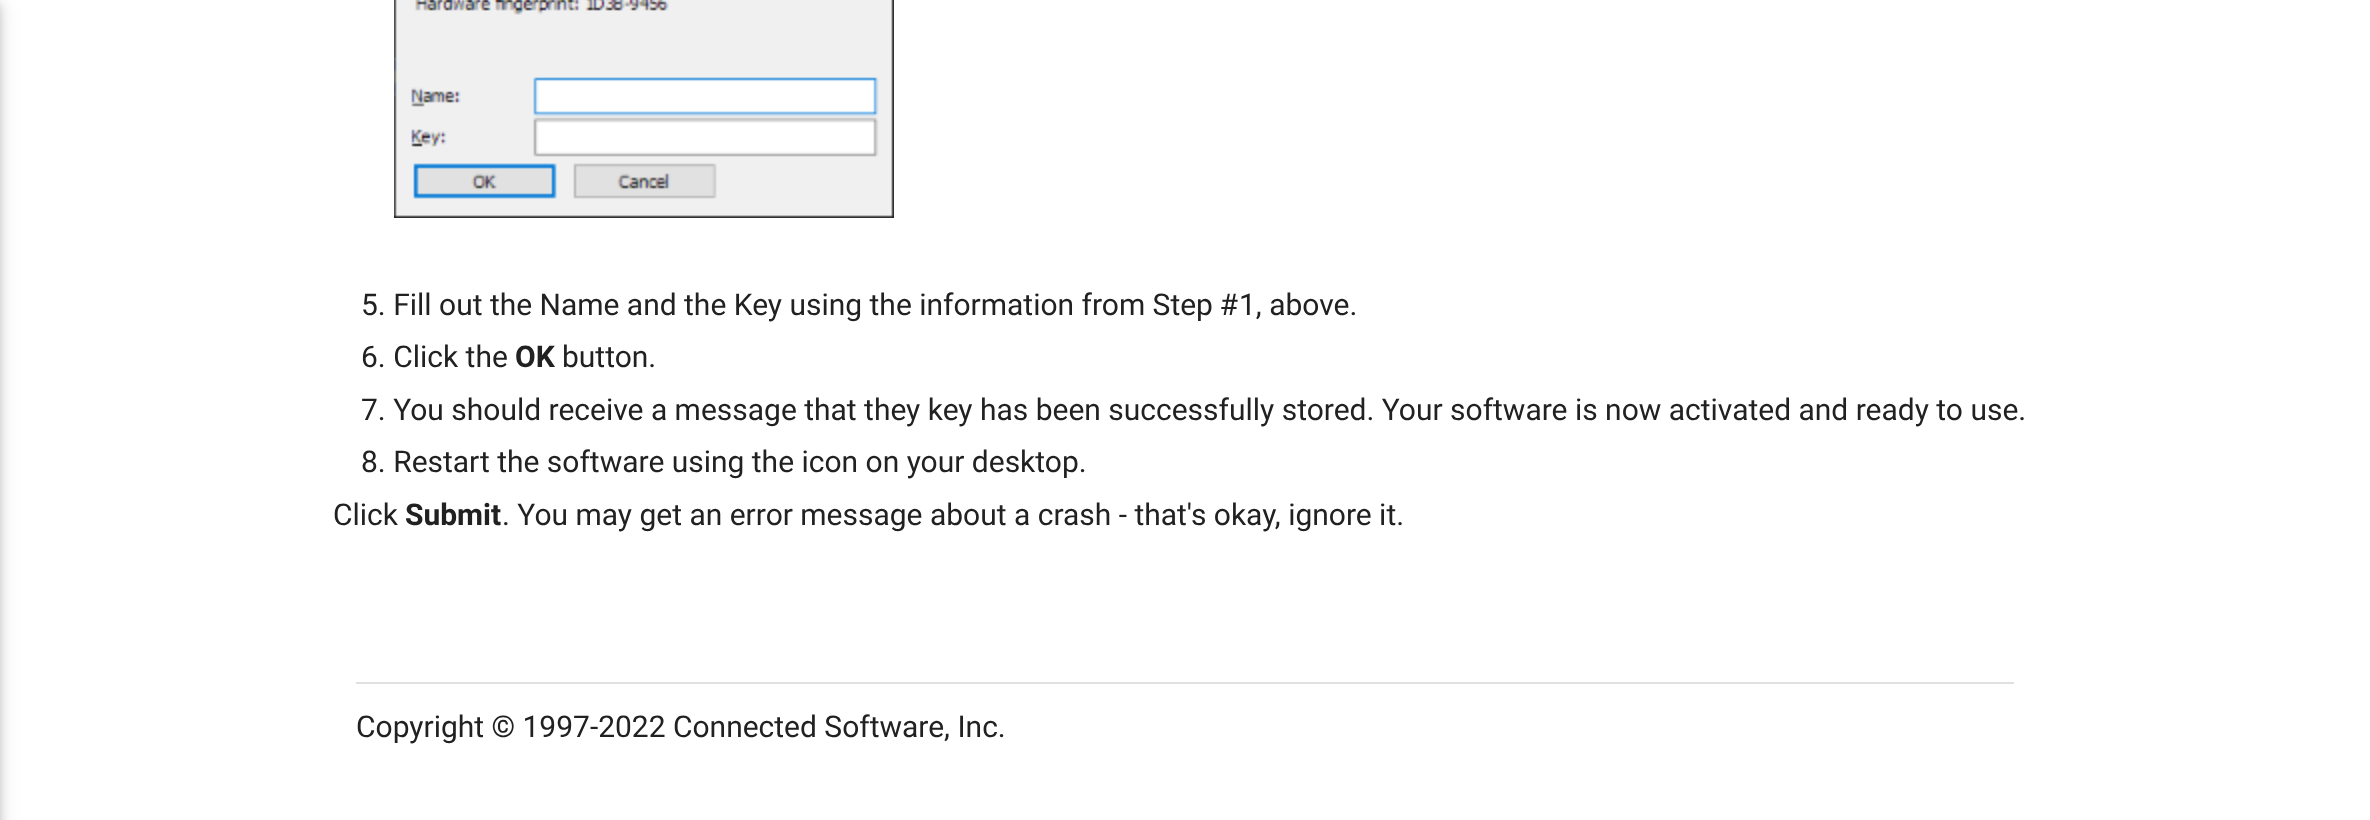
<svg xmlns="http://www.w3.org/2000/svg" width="2370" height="820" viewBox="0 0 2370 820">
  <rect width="100%" height="100%" fill="rgb(255,255,255)"/>
  <rect x="-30" y="4" width="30" height="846" fill="rgba(0,0,0,0.12)" filter="blur(10px)"/>
  <rect x="-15" y="4" width="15" height="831" fill="rgba(0,0,0,0.16)" filter="blur(5px)"/>
  <image x="394" y="0" width="500" height="218" href="pic1.png"/>
  <g font-family="Roboto" font-size="30" fill="rgb(33,33,33)">
    <text>
      <tspan x="361" y="315">5. Fill out the Name and the Key using the information from Step #1, above.</tspan>
      <tspan x="361" y="367">6. Click the</tspan>
    </text>
  </g>
  <text x="515" y="367" font-family="Roboto" font-size="30" font-weight="bold" fill="rgb(33,33,33)">OK</text>
  <g font-family="Roboto" font-size="30" fill="rgb(33,33,33)">
    <text x="562" y="367">button.</text>
    <text>
      <tspan x="361" y="420">7. You should receive a message that they key has been successfully stored. Your software is now activated and ready to use.</tspan>
      <tspan x="361" y="472">8. Restart the software using the icon on your desktop.</tspan>
    </text>
    <text x="333" y="525">Click</text>
  </g>
  <text x="405" y="525" font-family="Roboto" font-size="30" font-weight="bold" fill="rgb(33,33,33)">Submit</text>
  <text x="502" y="525" font-family="Roboto" font-size="30" fill="rgb(33,33,33)">. You may get an error message about a crash - that's okay, ignore it.</text>
  <rect x="356" y="682" width="1658" height="2" fill="rgb(224,224,224)"/>
  <text x="356" y="737" font-family="Roboto" font-size="30" fill="rgb(33,33,33)">Copyright © 1997-2022 Connected Software, Inc.</text>
</svg>
